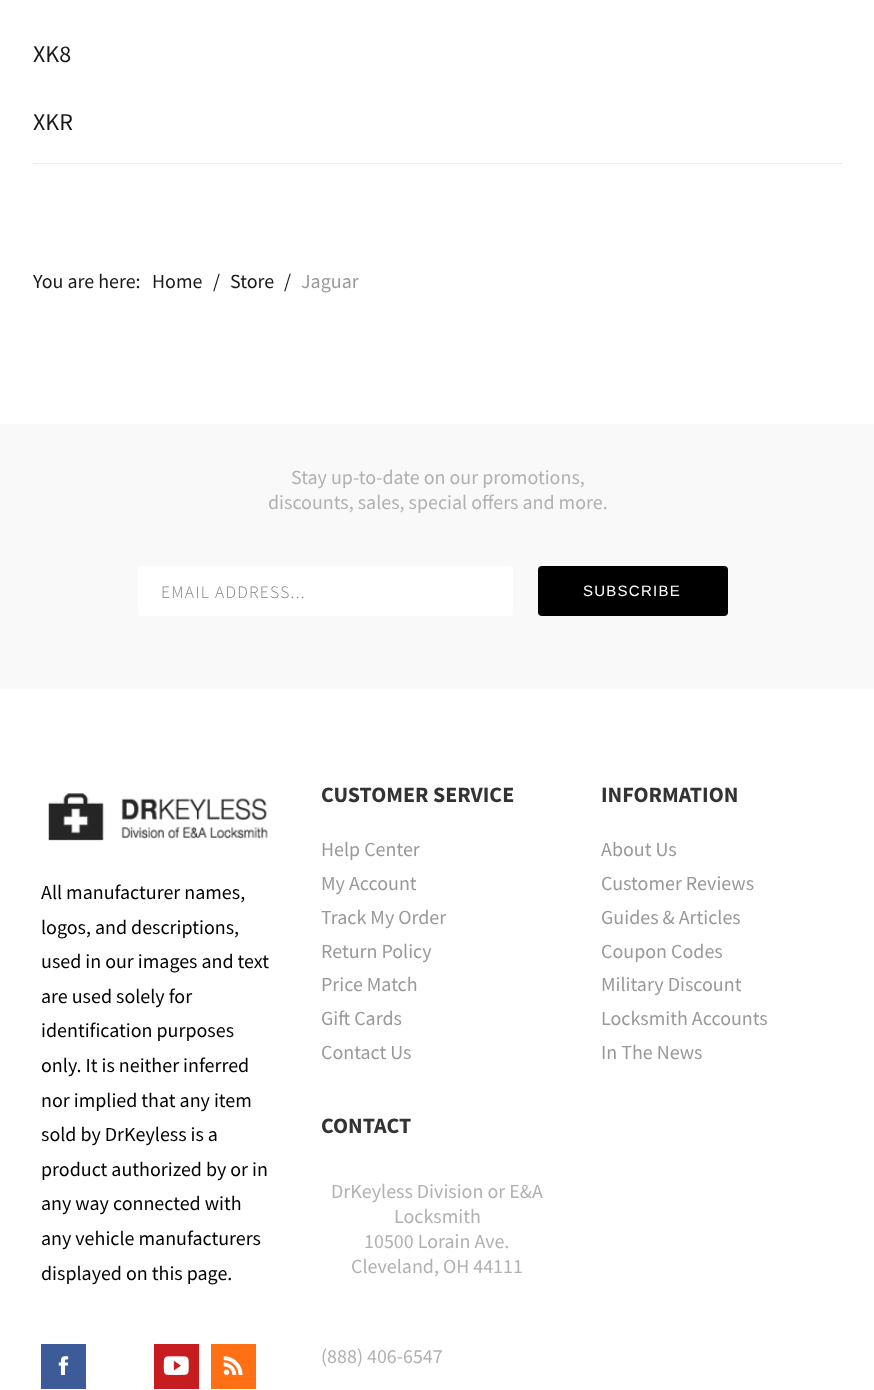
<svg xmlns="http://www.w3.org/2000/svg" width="874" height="1390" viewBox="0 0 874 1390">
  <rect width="100%" height="100%" fill="rgb(255,255,255)"/>
  <g font-family="Source Sans Pro" font-size="24" fill="rgb(25,25,25)">
    <text x="33" y="62">XK8</text>
    <text x="33" y="130">XKR</text>
  </g>
  <rect x="33" y="163" width="810" height="1" fill="rgb(238,238,238)"/>
  <g font-family="Source Sans Pro" font-size="20" fill="rgb(25,25,25)">
    <text x="33" y="288">You are here:</text>
    <text x="152" y="288">Home</text>
    <text x="213" y="288">/</text>
    <text x="230" y="288">Store</text>
    <text x="284" y="288">/</text>
  </g>
  <text x="301" y="288" font-family="Source Sans Pro" font-size="20" fill="rgb(153,153,153)">Jaguar</text>
  <rect x="0" y="424" width="874" height="265" fill="rgb(249,249,249)"/>
  <g font-family="Source Sans Pro" font-size="20" fill="rgb(176,177,177)">
    <text x="291" y="484">Stay up-to-date on our promotions,</text>
    <text x="268" y="509">discounts, sales, special offers and more.</text>
  </g>
  <rect x="138" y="566" width="375" height="50" rx="4" fill="rgb(255,255,255)"/>
  <text x="161" y="598" font-family="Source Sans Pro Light" font-size="17.5" font-weight="300" letter-spacing="1.25" fill="rgb(131,131,131)">EMAIL ADDRESS...</text>
  <rect x="538" y="566" width="190" height="50" rx="4" fill="rgb(0,0,0)"/>
  <text x="583" y="596" font-family="Liberation Sans" font-size="15" letter-spacing="1.25" fill="rgb(255,255,255)">SUBSCRIBE</text>
  <image x="48" y="793" width="220" height="48" href="pic1.png"/>
  <g font-family="Source Sans Pro" font-size="20" fill="rgb(0,0,0)">
    <text>
      <tspan x="41" y="899">All manufacturer names,</tspan>
      <tspan x="41" y="934">logos, and descriptions,</tspan>
      <tspan x="41" y="968">used in our images and text</tspan>
      <tspan x="41" y="1003">are used solely for</tspan>
      <tspan x="41" y="1037">identification purposes</tspan>
      <tspan x="41" y="1072">only. It is neither inferred</tspan>
      <tspan x="41" y="1107">nor implied that any item</tspan>
      <tspan x="41" y="1141">sold by DrKeyless is a</tspan>
      <tspan x="41" y="1176">product authorized by or in</tspan>
      <tspan x="41" y="1210">any way connected with</tspan>
      <tspan x="41" y="1245">any vehicle manufacturers</tspan>
      <tspan x="41" y="1280">displayed on this page.</tspan>
    </text>
  </g>
  <rect x="41" y="1344" width="45" height="45" fill="rgb(61,91,153)"/>
  <image x="58" y="1356" width="11" height="19" href="pic2.png"/>
  <rect x="154" y="1344" width="45" height="45" fill="rgb(199,28,32)"/>
  <image x="163" y="1356" width="26" height="19" href="pic3.png"/>
  <rect x="211" y="1344" width="45" height="45" fill="rgb(255,111,20)"/>
  <image x="223" y="1356" width="20" height="19" href="pic4.png"/>
  <text x="321" y="802" font-family="Source Sans Pro" font-size="22" font-weight="bold" fill="rgb(51,51,51)">CUSTOMER SERVICE</text>
  <g font-family="Source Sans Pro" font-size="20" fill="rgb(153,153,153)">
    <text>
      <tspan x="321" y="856">Help Center</tspan>
      <tspan x="321" y="890">My Account</tspan>
      <tspan x="321" y="924">Track My Order</tspan>
      <tspan x="321" y="958">Return Policy</tspan>
      <tspan x="321" y="991">Price Match</tspan>
      <tspan x="321" y="1025">Gift Cards</tspan>
      <tspan x="321" y="1059">Contact Us</tspan>
    </text>
  </g>
  <text x="601" y="802" font-family="Source Sans Pro" font-size="22" font-weight="bold" fill="rgb(51,51,51)">INFORMATION</text>
  <g font-family="Source Sans Pro" font-size="20" fill="rgb(153,153,153)">
    <text>
      <tspan x="601" y="856">About Us</tspan>
      <tspan x="601" y="890">Customer Reviews</tspan>
      <tspan x="601" y="924">Guides &amp; Articles</tspan>
      <tspan x="601" y="958">Coupon Codes</tspan>
      <tspan x="601" y="991">Military Discount</tspan>
      <tspan x="601" y="1025">Locksmith Accounts</tspan>
      <tspan x="601" y="1059">In The News</tspan>
    </text>
  </g>
  <text x="321" y="1133" font-family="Source Sans Pro" font-size="22" font-weight="bold" fill="rgb(51,51,51)">CONTACT</text>
  <g font-family="Source Sans Pro" font-size="20" fill="rgb(176,177,177)">
    <text x="331" y="1198">DrKeyless Division or E&amp;A</text>
    <text x="394" y="1223">Locksmith</text>
    <text x="364" y="1248">10500 Lorain Ave.</text>
    <text x="351" y="1273">Cleveland, OH 44111</text>
    <text x="321" y="1363">(888) 406-6547</text>
  </g>
</svg>
